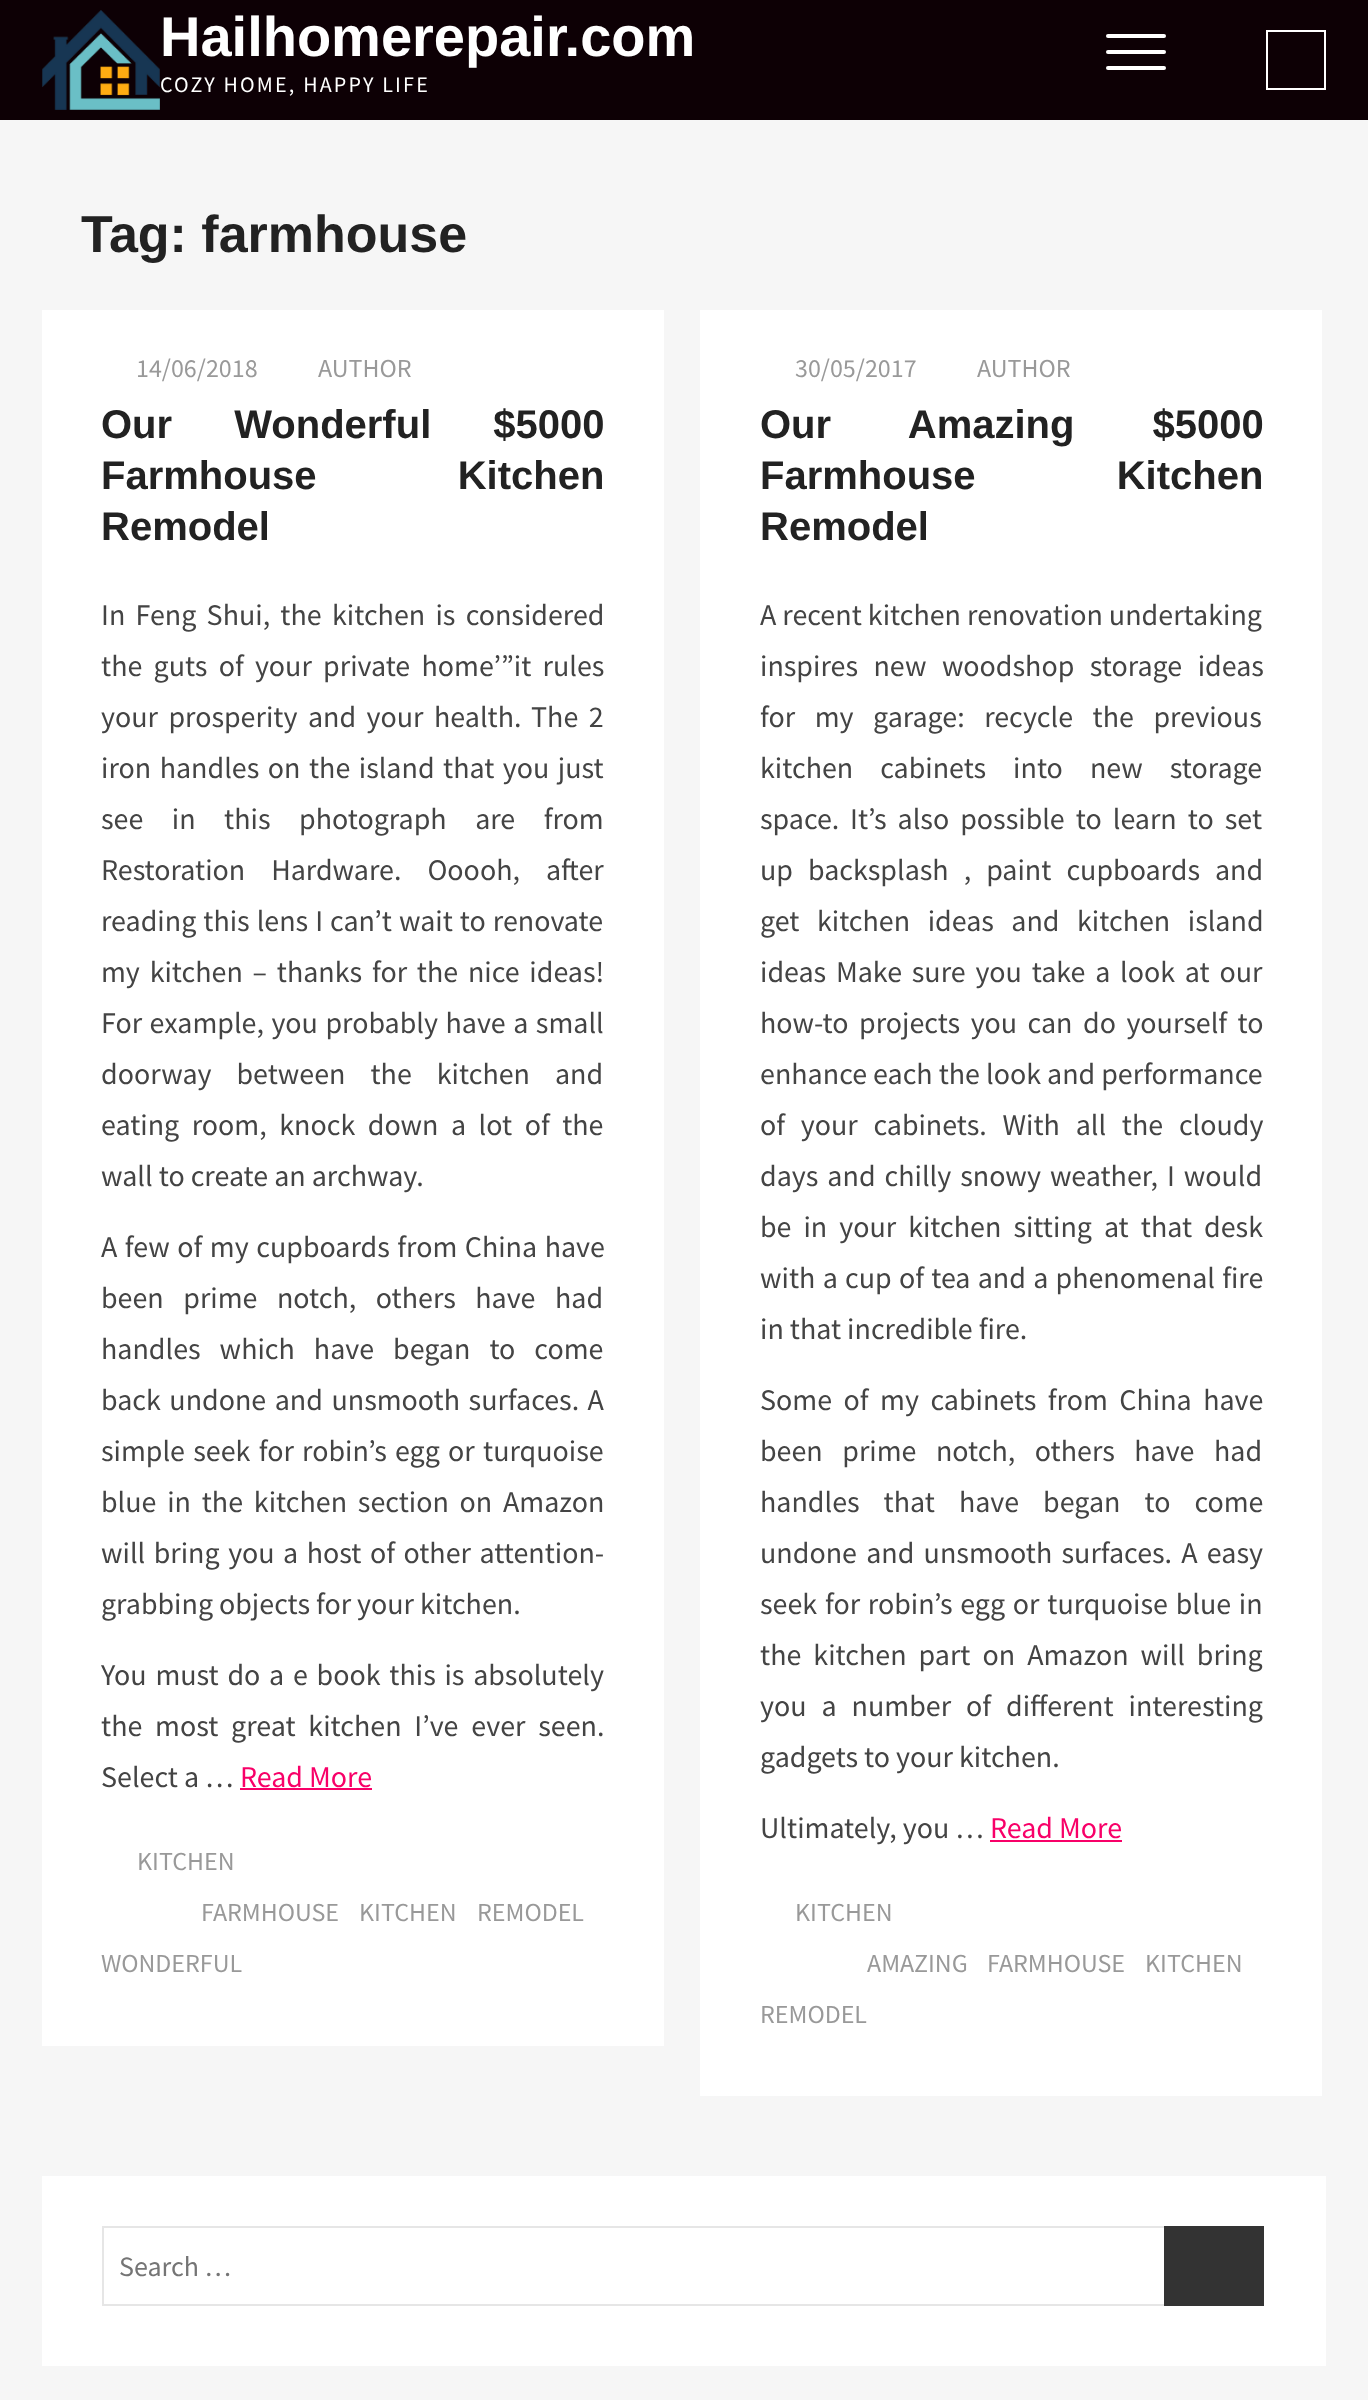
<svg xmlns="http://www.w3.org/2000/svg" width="1368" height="2400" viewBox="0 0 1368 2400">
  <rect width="100%" height="100%" fill="rgb(246,246,246)"/>
  <rect x="0" y="0" width="1368" height="120" fill="rgb(13,0,5)"/>
  <image x="42" y="10" width="118" height="100" href="pic1.png"/>
  <text x="160" y="56" font-family="Liberation Sans" font-size="56" font-weight="bold" fill="rgb(255,255,255)">Hailhomerepair.com</text>
  <text x="160" y="92" font-family="Source Sans Pro" font-size="22" letter-spacing="2.2" fill="rgb(255,255,255)">COZY HOME, HAPPY LIFE</text>
  <rect x="1106" y="50" width="60" height="4" rx="2" fill="rgb(255,255,255)"/>
  <rect x="1106" y="34" width="60" height="4" rx="2" fill="rgb(255,255,255)"/>
  <rect x="1106" y="66" width="60" height="4" rx="2" fill="rgb(255,255,255)"/>
  <rect x="1267" y="31" width="58" height="58" fill="none" stroke="rgb(255,255,255)" stroke-width="2"/>
  <text x="81" y="252" font-family="Liberation Sans" font-size="52" font-weight="bold" fill="rgb(34,34,34)">Tag: farmhouse</text>
  <rect x="42" y="310" width="622" height="1736" fill="rgb(255,255,255)"/>
  <g font-family="Source Sans Pro" font-size="26" fill="rgb(153,153,153)">
    <text x="136" y="377">14/06/2018</text>
    <text x="318" y="377">AUTHOR</text>
  </g>
  <g font-family="Liberation Sans" font-size="40" font-weight="bold" fill="rgb(34,34,34)">
    <text>
      <tspan x="101" y="438" word-spacing="51">Our Wonderful $5000</tspan>
      <tspan x="101" y="489" word-spacing="130">Farmhouse Kitchen</tspan>
      <tspan x="101" y="540">Remodel</tspan>
    </text>
  </g>
  <g font-family="Source Sans Pro" font-size="30" fill="rgb(68,68,68)">
    <text>
      <tspan x="101" y="625" word-spacing="4.25">In Feng Shui, the kitchen is considered</tspan>
      <tspan x="101" y="676" word-spacing="5.25">the guts of your private home’”it rules</tspan>
      <tspan x="101" y="727" word-spacing="4.5">your prosperity and your health.</tspan>
    </text>
    <text x="531" y="727" word-spacing="4.5">The 2</text>
    <text>
      <tspan x="101" y="778" word-spacing="2.5">iron handles on the island that you just</tspan>
      <tspan x="101" y="829" word-spacing="22.5">see in this photograph are from</tspan>
      <tspan x="101" y="880" word-spacing="20">Restoration Hardware. Ooooh, after</tspan>
      <tspan x="101" y="931" word-spacing="1">reading this lens I can’t wait to renovate</tspan>
      <tspan x="101" y="982" word-spacing="3.75">my kitchen – thanks for the nice ideas!</tspan>
      <tspan x="101" y="1033" word-spacing="1.5">For example, you probably have a small</tspan>
      <tspan x="101" y="1084" word-spacing="19">doorway between the kitchen and</tspan>
      <tspan x="101" y="1135" word-spacing="6.5">eating room, knock down a lot of the</tspan>
      <tspan x="101" y="1186">wall to create an archway.</tspan>
    </text>
    <text>
      <tspan x="101" y="1257" word-spacing="1.5">A few of my cupboards from China have</tspan>
      <tspan x="101" y="1308" word-spacing="13.5">been prime notch, others have had</tspan>
      <tspan x="101" y="1359" word-spacing="13">handles which have began to come</tspan>
      <tspan x="101" y="1410" word-spacing="2.5">back undone and unsmooth surfaces. A</tspan>
      <tspan x="101" y="1461" word-spacing="2.25">simple seek for robin’s egg or turquoise</tspan>
      <tspan x="101" y="1512" word-spacing="4.75">blue in the kitchen section on Amazon</tspan>
      <tspan x="101" y="1563" word-spacing="2.5">will bring you a host of other attention-</tspan>
      <tspan x="101" y="1614">grabbing objects for your kitchen.</tspan>
    </text>
    <text>
      <tspan x="101" y="1685" word-spacing="2.75">You must do a e book this is absolutely</tspan>
      <tspan x="101" y="1736" word-spacing="6.75">the most great kitchen I’ve ever seen.</tspan>
      <tspan x="101" y="1787">Select a …</tspan>
    </text>
  </g>
  <text x="240" y="1787" font-family="Source Sans Pro" font-size="30" fill="rgb(248,0,104)">Read More</text>
  <rect x="240" y="1788" width="132" height="2" fill="rgb(248,0,104)"/>
  <g font-family="Source Sans Pro" font-size="26" fill="rgb(153,153,153)">
    <text x="137" y="1870">KITCHEN</text>
    <text x="201" y="1921">FARMHOUSE</text>
    <text x="359" y="1921">KITCHEN</text>
    <text x="477" y="1921">REMODEL</text>
    <text x="101" y="1972">WONDERFUL</text>
  </g>
  <rect x="700" y="310" width="622" height="1786" fill="rgb(255,255,255)"/>
  <g font-family="Source Sans Pro" font-size="26" fill="rgb(153,153,153)">
    <text x="795" y="377">30/05/2017</text>
    <text x="977" y="377">AUTHOR</text>
  </g>
  <g font-family="Liberation Sans" font-size="40" font-weight="bold" fill="rgb(34,34,34)">
    <text>
      <tspan x="760" y="438" word-spacing="67">Our Amazing $5000</tspan>
      <tspan x="760" y="489" word-spacing="130">Farmhouse Kitchen</tspan>
      <tspan x="760" y="540">Remodel</tspan>
    </text>
  </g>
  <g font-family="Source Sans Pro" font-size="30" fill="rgb(68,68,68)">
    <text>
      <tspan x="760" y="625">A recent kitchen renovation undertaking</tspan>
      <tspan x="760" y="676" word-spacing="9.5">inspires new woodshop storage ideas</tspan>
      <tspan x="760" y="727" word-spacing="13.5">for my garage: recycle the previous</tspan>
      <tspan x="760" y="778" word-spacing="21">kitchen cabinets into new storage</tspan>
      <tspan x="760" y="829">space.</tspan>
    </text>
    <text x="850" y="829" word-spacing="5">It’s also possible to learn to set</text>
    <text>
      <tspan x="760" y="880" word-spacing="9">up backsplash , paint cupboards and</tspan>
      <tspan x="760" y="931" word-spacing="11.5">get kitchen ideas and kitchen island</tspan>
      <tspan x="760" y="982" word-spacing="3.75">ideas Make sure you take a look at our</tspan>
      <tspan x="760" y="1033" word-spacing="4.5">how-to projects you can do yourself to</tspan>
      <tspan x="760" y="1084">enhance each the look and performance</tspan>
      <tspan x="760" y="1135" word-spacing="9.75">of your cabinets. With all the cloudy</tspan>
      <tspan x="760" y="1186" word-spacing="3">days and chilly snowy weather, I would</tspan>
      <tspan x="760" y="1237" word-spacing="6">be in your kitchen sitting at that desk</tspan>
      <tspan x="760" y="1288" word-spacing="1.25">with a cup of tea and a phenomenal fire</tspan>
      <tspan x="760" y="1339">in that incredible fire.</tspan>
    </text>
    <text>
      <tspan x="760" y="1410" word-spacing="5.5">Some of my cabinets from China have</tspan>
      <tspan x="760" y="1461" word-spacing="13.5">been prime notch, others have had</tspan>
      <tspan x="760" y="1512" word-spacing="18">handles that have began to come</tspan>
      <tspan x="760" y="1563" word-spacing="3.25">undone and unsmooth surfaces. A easy</tspan>
      <tspan x="760" y="1614" word-spacing="1.75">seek for robin’s egg or turquoise blue in</tspan>
      <tspan x="760" y="1665" word-spacing="6">the kitchen part on Amazon will bring</tspan>
      <tspan x="760" y="1716" word-spacing="9">you a number of different interesting</tspan>
      <tspan x="760" y="1767">gadgets to your kitchen.</tspan>
    </text>
    <text x="760" y="1838">Ultimately, you …</text>
  </g>
  <text x="990" y="1838" font-family="Source Sans Pro" font-size="30" fill="rgb(248,0,104)">Read More</text>
  <rect x="990" y="1840" width="132" height="2" fill="rgb(248,0,104)"/>
  <g font-family="Source Sans Pro" font-size="26" fill="rgb(153,153,153)">
    <text x="795" y="1921">KITCHEN</text>
    <text x="867" y="1972">AMAZING</text>
    <text x="987" y="1972">FARMHOUSE</text>
    <text x="1145" y="1972">KITCHEN</text>
    <text x="760" y="2023">REMODEL</text>
  </g>
  <rect x="42" y="2176" width="1284" height="190" fill="rgb(255,255,255)"/>
  <rect x="103" y="2227" width="1062" height="78" fill="none" stroke="rgb(230,230,230)" stroke-width="2"/>
  <text x="119" y="2276" font-family="Source Sans Pro" font-size="28" fill="rgb(117,117,117)">Search …</text>
  <rect x="1164" y="2226" width="100" height="80" fill="rgb(51,51,51)"/>
</svg>
